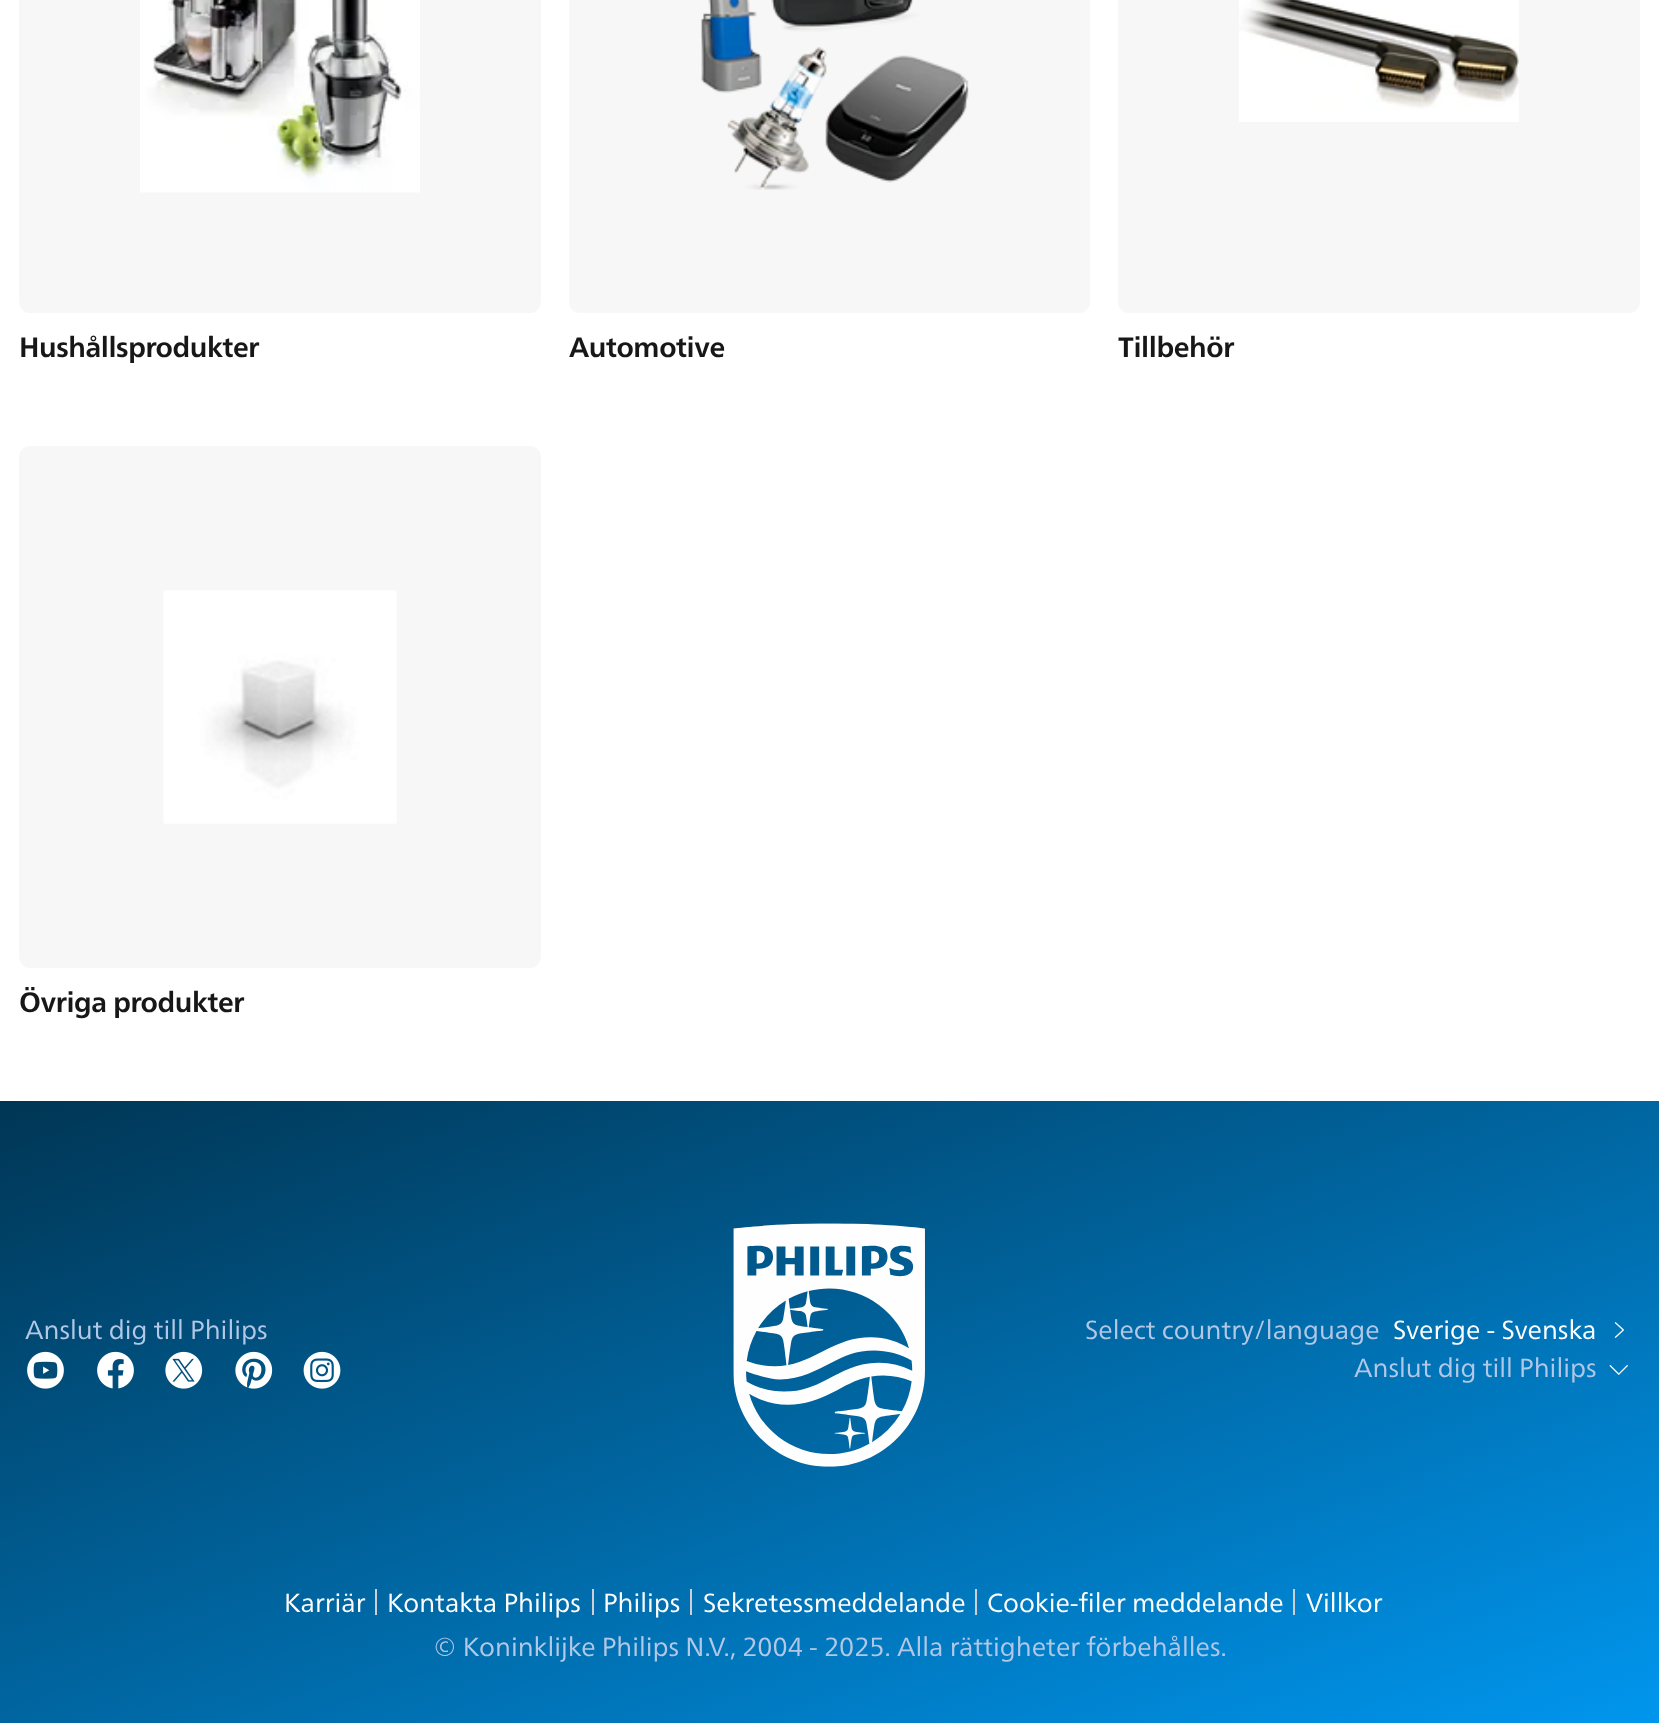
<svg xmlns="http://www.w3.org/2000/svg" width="1659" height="1723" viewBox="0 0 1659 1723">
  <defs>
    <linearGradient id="g1" gradientUnits="userSpaceOnUse" x1="624" y1="866" x2="1035" y2="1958"><stop offset="0" stop-color="rgb(0,54,85)"/><stop offset="0.5" stop-color="rgb(0,102,161)"/><stop offset="1" stop-color="rgb(0,150,238)"/></linearGradient>
  </defs>
  <rect width="100%" height="100%" fill="rgb(255,255,255)"/>
  <rect x="19" y="-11" width="522" height="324" rx="11" fill="rgb(247,247,247)"/>
  <image x="140" y="0" width="280" height="193" href="pic1.png"/>
  <text x="19" y="357" font-family="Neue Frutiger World" font-size="28" font-weight="bold" letter-spacing="-0.4" fill="rgb(23,23,23)">Hushållsprodukter</text>
  <rect x="569" y="-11" width="521" height="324" rx="11" fill="rgb(247,247,247)"/>
  <image x="700" y="0" width="269" height="190" href="pic2.png"/>
  <text x="569" y="357" font-family="Neue Frutiger World" font-size="28" font-weight="bold" letter-spacing="-0.4" fill="rgb(23,23,23)">Automotive</text>
  <rect x="1118" y="-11" width="522" height="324" rx="11" fill="rgb(247,247,247)"/>
  <image x="1239" y="0" width="280" height="122" href="pic3.png"/>
  <text x="1118" y="357" font-family="Neue Frutiger World" font-size="28" font-weight="bold" letter-spacing="-0.4" fill="rgb(23,23,23)">Tillbehör</text>
  <rect x="19" y="446" width="522" height="522" rx="11" fill="rgb(247,247,247)"/>
  <image x="163" y="590" width="234" height="234" href="pic4.png"/>
  <text x="19" y="1012" font-family="Neue Frutiger World" font-size="28" font-weight="bold" letter-spacing="-0.4" fill="rgb(23,23,23)">Övriga produkter</text>
  <rect x="0" y="1101" width="1659" height="622" fill="url(#g1)"/>
  <text x="25" y="1339" font-family="Neue Frutiger World" font-size="26.25" fill="rgb(179,200,230)">Anslut dig till Philips</text>
  <image x="27" y="1351" width="37" height="38" href="pic5.png"/>
  <image x="97" y="1351" width="37" height="38" href="pic6.png"/>
  <image x="165" y="1351" width="38" height="38" href="pic7.png"/>
  <image x="235" y="1351" width="38" height="38" href="pic8.png"/>
  <image x="303" y="1351" width="38" height="38" href="pic9.png"/>
  <image x="733" y="1223" width="192" height="244" href="pic10.png"/>
  <text x="1085" y="1339" font-family="Neue Frutiger World" font-size="26.25" fill="rgb(179,200,230)">Select country/language</text>
  <text x="1393" y="1339" font-family="Neue Frutiger World" font-size="26.25" fill="rgb(255,255,255)">Sverige - Svenska</text>
  <image x="1614" y="1322" width="10" height="16" href="pic11.png"/>
  <text x="1354" y="1377" font-family="Neue Frutiger World" font-size="26.25" fill="rgb(179,200,230)">Anslut dig till Philips</text>
  <image x="1609" y="1365" width="19" height="10" href="pic12.png"/>
  <text x="284" y="1612" font-family="Neue Frutiger World" font-size="26.25" fill="rgb(255,255,255)">Karriär</text>
  <rect x="375" y="1589" width="2" height="26" fill="rgb(204,206,216)"/>
  <text x="387" y="1612" font-family="Neue Frutiger World" font-size="26.25" fill="rgb(255,255,255)">Kontakta Philips</text>
  <rect x="592" y="1589" width="2" height="26" fill="rgb(204,206,216)"/>
  <text x="603" y="1612" font-family="Neue Frutiger World" font-size="26.25" fill="rgb(255,255,255)">Philips</text>
  <rect x="690" y="1589" width="2" height="26" fill="rgb(204,206,216)"/>
  <text x="703" y="1612" font-family="Neue Frutiger World" font-size="26.25" fill="rgb(255,255,255)">Sekretessmeddelande</text>
  <rect x="975" y="1589" width="2" height="26" fill="rgb(204,206,216)"/>
  <text x="987" y="1612" font-family="Neue Frutiger World" font-size="26.25" fill="rgb(255,255,255)">Cookie-filer meddelande</text>
  <rect x="1293" y="1589" width="2" height="26" fill="rgb(204,206,216)"/>
  <text x="1306" y="1612" font-family="Neue Frutiger World" font-size="26.25" fill="rgb(255,255,255)">Villkor</text>
  <text x="433" y="1656" font-family="Neue Frutiger World" font-size="26.25" fill="rgb(179,200,230)">© Koninklijke Philips N.V., 2004 - 2025. Alla rättigheter förbehålles.</text>
</svg>
